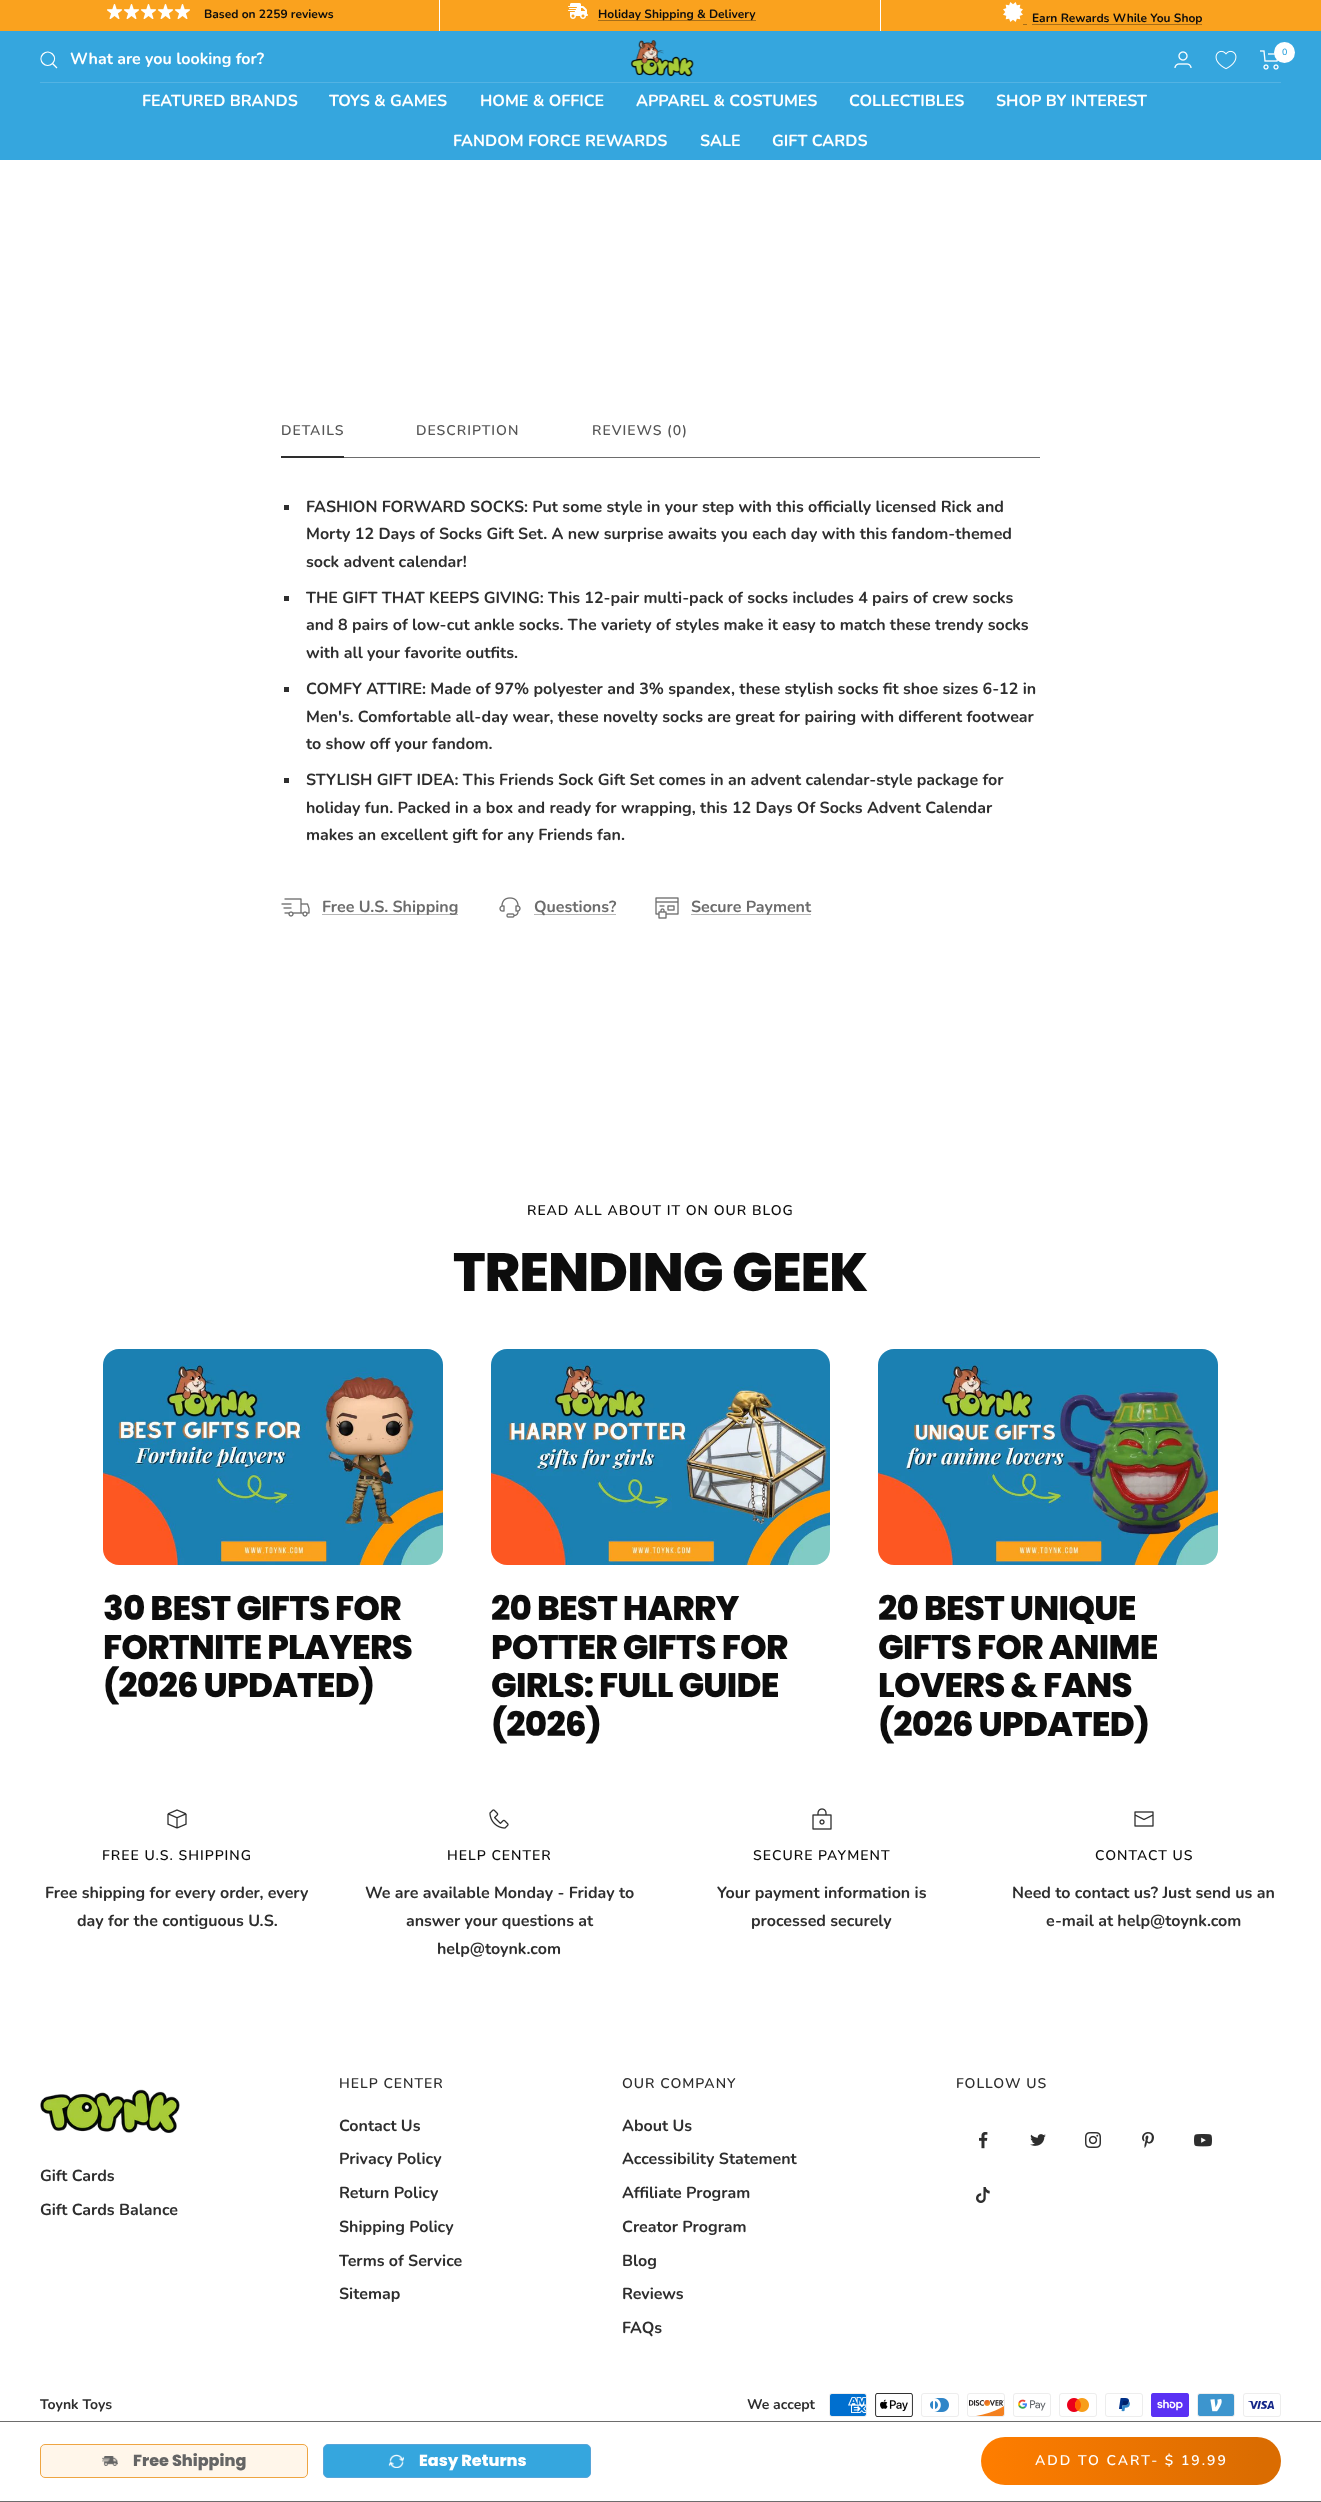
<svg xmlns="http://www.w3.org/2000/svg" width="1321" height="2502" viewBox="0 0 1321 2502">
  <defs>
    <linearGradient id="g1" gradientUnits="userSpaceOnUse" x1="1281" y1="2461" x2="981" y2="2461"><stop offset="0.06" stop-color="rgb(218,108,1)"/><stop offset="0.98" stop-color="rgb(254,125,0)"/></linearGradient>
  </defs>
  <rect width="100%" height="100%" fill="rgb(255,255,255)"/>
  <rect x="0" y="0" width="1321" height="31" fill="rgb(250,162,30)"/>
  <rect x="439" y="0" width="1" height="31" fill="rgb(255,255,255)"/>
  <image x="107" y="4" width="15" height="15" href="pic1.png"/>
  <image x="124" y="4" width="15" height="15" href="pic1.png"/>
  <image x="141" y="4" width="15" height="15" href="pic1.png"/>
  <image x="158" y="4" width="15" height="15" href="pic1.png"/>
  <image x="175" y="4" width="15" height="15" href="pic1.png"/>
  <text x="204" y="18" font-family="Nunito" font-size="12" font-weight="bold" fill="rgb(13,13,13)">Based on 2259 reviews</text>
  <rect x="880" y="0" width="1" height="31" fill="rgb(255,255,255)"/>
  <image x="568" y="3" width="20" height="16" href="pic2.png"/>
  <rect x="598" y="20" width="158" height="1" fill="rgb(167,110,24)"/>
  <text x="598" y="18" font-family="Nunito" font-size="12" font-weight="bold" fill="rgb(13,13,13)">Holiday Shipping &amp; Delivery</text>
  <image x="1003" y="2" width="20" height="20" href="pic3.png"/>
  <rect x="1023" y="24" width="4" height="1" fill="rgb(167,110,24)"/>
  <rect x="1032" y="24" width="170" height="1" fill="rgb(167,110,24)"/>
  <text x="1032" y="22" font-family="Nunito" font-size="12" font-weight="bold" fill="rgb(13,13,13)">Earn Rewards While You Shop</text>
  <rect x="0" y="31" width="1321" height="129" fill="rgb(53,166,222)"/>
  <path d="M52.5 63.5C58.5 57 49.5 48 43 54C37 60.5 46 69.5 52.5 63.5ZM52.5 63.5L57 68" fill="none" stroke="rgb(255,255,255)" stroke-width="1.3"/>
  <text x="70" y="64" font-family="Nunito" font-size="16" font-weight="bold" fill="rgb(255,255,255)">What are you looking for?</text>
  <image x="630" y="40" width="64" height="37" href="pic4.png"/>
  <image x="1174" y="51" width="18" height="17" href="pic5.png"/>
  <image x="1215" y="50" width="22" height="20" href="pic6.png"/>
  <image x="1260" y="50" width="19" height="20" href="pic7.png"/>
  <circle cx="1284.5" cy="52.5" r="10.5" fill="rgb(255,255,255)"/>
  <text x="1282" y="55" font-family="Nunito" font-size="9" font-weight="600" fill="rgb(53,166,222)">0</text>
  <rect x="40" y="82" width="1241" height="1" fill="rgb(83,179,227)"/>
  <g font-family="Nunito" font-size="16" font-weight="bold" fill="rgb(255,255,255)">
    <text x="142" y="106">FEATURED BRANDS</text>
    <text x="329" y="106">TOYS &amp; GAMES</text>
    <text x="480" y="106">HOME &amp; OFFICE</text>
    <text x="636" y="106">APPAREL &amp; COSTUMES</text>
    <text x="849" y="106">COLLECTIBLES</text>
    <text x="996" y="106">SHOP BY INTEREST</text>
    <text x="453" y="146">FANDOM FORCE REWARDS</text>
    <text x="700" y="146">SALE</text>
    <text x="772" y="146">GIFT CARDS</text>
  </g>
  <rect x="344" y="457" width="696" height="1" fill="rgb(109,109,109)"/>
  <g font-family="Nunito" font-size="14" font-weight="600" letter-spacing="1" fill="rgb(86,86,86)">
    <text x="281" y="435">DETAILS</text>
    <text x="416" y="435">DESCRIPTION</text>
    <text x="592" y="435">REVIEWS (0)</text>
  </g>
  <rect x="281" y="456" width="63" height="2" fill="rgb(46,46,46)"/>
  <rect x="284" y="505" width="5" height="5" fill="rgb(46,46,46)"/>
  <g font-family="Nunito" font-size="16" font-weight="bold" fill="rgb(46,46,46)">
    <text>
      <tspan x="306" y="512">FASHION FORWARD SOCKS: Put some style in your step with this officially licensed Rick and</tspan>
      <tspan x="306" y="539">Morty 12 Days of Socks Gift Set. A new surprise awaits you each day with this fandom-themed</tspan>
      <tspan x="306" y="567">sock advent calendar!</tspan>
    </text>
  </g>
  <rect x="284" y="596" width="5" height="5" fill="rgb(46,46,46)"/>
  <g font-family="Nunito" font-size="16" font-weight="bold" fill="rgb(46,46,46)">
    <text>
      <tspan x="306" y="603">THE GIFT THAT KEEPS GIVING: This 12-pair multi-pack of socks includes 4 pairs of crew socks</tspan>
      <tspan x="306" y="630">and 8 pairs of low-cut ankle socks. The variety of styles make it easy to match these trendy socks</tspan>
      <tspan x="306" y="658">with all your favorite outfits.</tspan>
    </text>
  </g>
  <rect x="284" y="687" width="5" height="5" fill="rgb(46,46,46)"/>
  <g font-family="Nunito" font-size="16" font-weight="bold" fill="rgb(46,46,46)">
    <text>
      <tspan x="306" y="694">COMFY ATTIRE: Made of 97% polyester and 3% spandex, these stylish socks fit shoe sizes 6-12 in</tspan>
      <tspan x="306" y="722">Men's. Comfortable all-day wear, these novelty socks are great for pairing with different footwear</tspan>
      <tspan x="306" y="749">to show off your fandom.</tspan>
    </text>
  </g>
  <rect x="284" y="778" width="5" height="5" fill="rgb(46,46,46)"/>
  <g font-family="Nunito" font-size="16" font-weight="bold" fill="rgb(46,46,46)">
    <text>
      <tspan x="306" y="785">STYLISH GIFT IDEA: This Friends Sock Gift Set comes in an advent calendar-style package for</tspan>
      <tspan x="306" y="813">holiday fun. Packed in a box and ready for wrapping, this 12 Days Of Socks Advent Calendar</tspan>
      <tspan x="306" y="840">makes an excellent gift for any Friends fan.</tspan>
    </text>
  </g>
  <image x="281" y="898" width="29" height="19" href="pic8.png"/>
  <rect x="322" y="914" width="136" height="1" fill="rgb(182,182,182)"/>
  <text x="322" y="912" font-family="Nunito" font-size="16" font-weight="bold" fill="rgb(108,108,108)">Free U.S. Shipping</text>
  <image x="499" y="897" width="22" height="21" href="pic9.png"/>
  <rect x="534" y="914" width="82" height="1" fill="rgb(182,182,182)"/>
  <text x="534" y="912" font-family="Nunito" font-size="16" font-weight="bold" fill="rgb(108,108,108)">Questions?</text>
  <image x="655" y="897" width="24" height="22" href="pic10.png"/>
  <rect x="691" y="914" width="120" height="1" fill="rgb(182,182,182)"/>
  <text x="691" y="912" font-family="Nunito" font-size="16" font-weight="bold" fill="rgb(108,108,108)">Secure Payment</text>
  <text x="527" y="1215" font-family="Nunito" font-size="14" font-weight="600" letter-spacing="1" fill="rgb(13,13,13)">READ ALL ABOUT IT ON OUR BLOG</text>
  <text x="453" y="1291" font-family="Poppins" font-size="54" font-weight="800" letter-spacing="-1" fill="rgb(13,13,13)">TRENDING GEEK</text>
  <image x="103" y="1349" width="340" height="216" href="pic11.png"/>
  <g font-family="Poppins" font-size="34" font-weight="800" letter-spacing="-0.75" fill="rgb(13,13,13)">
    <text>
      <tspan x="103" y="1620">30 BEST GIFTS FOR</tspan>
      <tspan x="103" y="1659">FORTNITE PLAYERS</tspan>
      <tspan x="103" y="1697">(2026 UPDATED)</tspan>
    </text>
  </g>
  <image x="491" y="1349" width="339" height="216" href="pic12.png"/>
  <g font-family="Poppins" font-size="34" font-weight="800" letter-spacing="-0.75" fill="rgb(13,13,13)">
    <text>
      <tspan x="491" y="1620">20 BEST HARRY</tspan>
      <tspan x="491" y="1659">POTTER GIFTS FOR</tspan>
      <tspan x="491" y="1697">GIRLS: FULL GUIDE</tspan>
      <tspan x="491" y="1736">(2026)</tspan>
    </text>
  </g>
  <image x="878" y="1349" width="340" height="216" href="pic13.png"/>
  <g font-family="Poppins" font-size="34" font-weight="800" letter-spacing="-0.75" fill="rgb(13,13,13)">
    <text>
      <tspan x="878" y="1620">20 BEST UNIQUE</tspan>
      <tspan x="878" y="1659">GIFTS FOR ANIME</tspan>
      <tspan x="878" y="1697">LOVERS &amp; FANS</tspan>
      <tspan x="878" y="1736">(2026 UPDATED)</tspan>
    </text>
  </g>
  <image x="167" y="1809" width="20" height="20" href="pic14.png"/>
  <text x="102" y="1860" font-family="Nunito" font-size="14" font-weight="600" letter-spacing="1" fill="rgb(13,13,13)">FREE U.S. SHIPPING</text>
  <g font-family="Nunito" font-size="16" font-weight="bold" fill="rgb(46,46,46)">
    <text x="45" y="1898">Free shipping for every order, every</text>
    <text x="77" y="1926">day for the contiguous U.S.</text>
  </g>
  <image x="489" y="1809" width="20" height="20" href="pic15.png"/>
  <text x="447" y="1860" font-family="Nunito" font-size="14" font-weight="600" letter-spacing="1" fill="rgb(13,13,13)">HELP CENTER</text>
  <g font-family="Nunito" font-size="16" font-weight="bold" fill="rgb(46,46,46)">
    <text x="365" y="1898">We are available Monday - Friday to</text>
    <text x="406" y="1926">answer your questions at</text>
    <text x="437" y="1954">help@toynk.com</text>
  </g>
  <image x="812" y="1808" width="20" height="22" href="pic16.png"/>
  <text x="753" y="1860" font-family="Nunito" font-size="14" font-weight="600" letter-spacing="1" fill="rgb(13,13,13)">SECURE PAYMENT</text>
  <g font-family="Nunito" font-size="16" font-weight="bold" fill="rgb(46,46,46)">
    <text x="717" y="1898">Your payment information is</text>
    <text x="751" y="1926">processed securely</text>
  </g>
  <image x="1134" y="1811" width="20" height="16" href="pic17.png"/>
  <text x="1095" y="1860" font-family="Nunito" font-size="14" font-weight="600" letter-spacing="1" fill="rgb(13,13,13)">CONTACT US</text>
  <g font-family="Nunito" font-size="16" font-weight="bold" fill="rgb(46,46,46)">
    <text x="1012" y="1898">Need to contact us? Just send us an</text>
    <text x="1046" y="1926">e-mail at help@toynk.com</text>
  </g>
  <rect x="0" y="2421" width="1321" height="1" fill="rgb(109,109,109)"/>
  <rect x="0" y="2501" width="1321" height="1" fill="rgb(109,109,109)"/>
  <rect x="40.5" y="2444.5" width="267" height="33" rx="4.5" fill="rgb(255,246,234)" stroke="rgb(238,165,66)"/>
  <image x="102" y="2456" width="16" height="10" href="pic18.png"/>
  <text x="133" y="2466" font-family="Poppins" font-size="16" font-weight="800" fill="rgb(101,101,101)">Free Shipping</text>
  <rect x="323.5" y="2444.5" width="267" height="33" rx="4.5" fill="rgb(53,166,222)" stroke="rgb(87,165,217)"/>
  <image x="388" y="2454" width="16" height="14" href="pic19.png"/>
  <text x="419" y="2466" font-family="Poppins" font-size="16" font-weight="800" fill="rgb(255,255,255)">Easy Returns</text>
  <rect x="981" y="2437" width="300" height="48" rx="24" fill="url(#g1)"/>
  <text x="1035" y="2465" font-family="Nunito" font-size="14" font-weight="600" letter-spacing="2" fill="rgb(255,255,255)">ADD TO CART- $ 19.99</text>
  <text x="339" y="2088" font-family="Nunito" font-size="14" font-weight="600" letter-spacing="1" fill="rgb(46,46,46)">HELP CENTER</text>
  <g font-family="Nunito" font-size="16" font-weight="bold" fill="rgb(46,46,46)">
    <text x="339" y="2131">Contact Us</text>
    <text x="339" y="2164">Privacy Policy</text>
    <text x="339" y="2198">Return Policy</text>
    <text x="339" y="2232">Shipping Policy</text>
    <text x="339" y="2266">Terms of Service</text>
    <text x="339" y="2299">Sitemap</text>
  </g>
  <text x="622" y="2088" font-family="Nunito" font-size="14" font-weight="600" letter-spacing="1" fill="rgb(46,46,46)">OUR COMPANY</text>
  <g font-family="Nunito" font-size="16" font-weight="bold" fill="rgb(46,46,46)">
    <text x="622" y="2131">About Us</text>
    <text x="622" y="2164">Accessibility Statement</text>
    <text x="622" y="2198">Affiliate Program</text>
    <text x="622" y="2232">Creator Program</text>
    <text x="622" y="2266">Blog</text>
    <text x="622" y="2299">Reviews</text>
    <text x="622" y="2333">FAQs</text>
  </g>
  <text x="956" y="2088" font-family="Nunito" font-size="14" font-weight="600" letter-spacing="1" fill="rgb(46,46,46)">FOLLOW US</text>
  <image x="979" y="2132" width="9" height="17" href="pic20.png"/>
  <image x="1030" y="2134" width="16" height="12" href="pic21.png"/>
  <image x="1085" y="2132" width="16" height="16" href="pic22.png"/>
  <image x="1142" y="2132" width="12" height="16" href="pic23.png"/>
  <image x="1194" y="2134" width="18" height="13" href="pic24.png"/>
  <image x="976" y="2187" width="14" height="16" href="pic25.png"/>
  <image x="40" y="2089" width="140" height="44" href="pic26.png"/>
  <g font-family="Nunito" font-size="16" font-weight="bold" fill="rgb(46,46,46)">
    <text x="40" y="2181">Gift Cards</text>
    <text x="40" y="2215">Gift Cards Balance</text>
  </g>
  <g font-family="Nunito" font-size="14" font-weight="bold" fill="rgb(46,46,46)">
    <text x="40" y="2409">Toynk Toys</text>
    <text x="747" y="2409">We accept</text>
  </g>
  <image x="829" y="2393" width="38" height="24" href="pic27.png"/>
  <image x="875" y="2393" width="38" height="24" href="pic28.png"/>
  <image x="921" y="2393" width="38" height="24" href="pic29.png"/>
  <image x="967" y="2393" width="38" height="24" href="pic30.png"/>
  <image x="1013" y="2393" width="38" height="24" href="pic31.png"/>
  <image x="1059" y="2393" width="38" height="24" href="pic32.png"/>
  <image x="1105" y="2393" width="38" height="24" href="pic33.png"/>
  <image x="1151" y="2393" width="38" height="24" href="pic34.png"/>
  <image x="1197" y="2393" width="38" height="24" href="pic35.png"/>
  <image x="1243" y="2393" width="38" height="24" href="pic36.png"/>
</svg>
